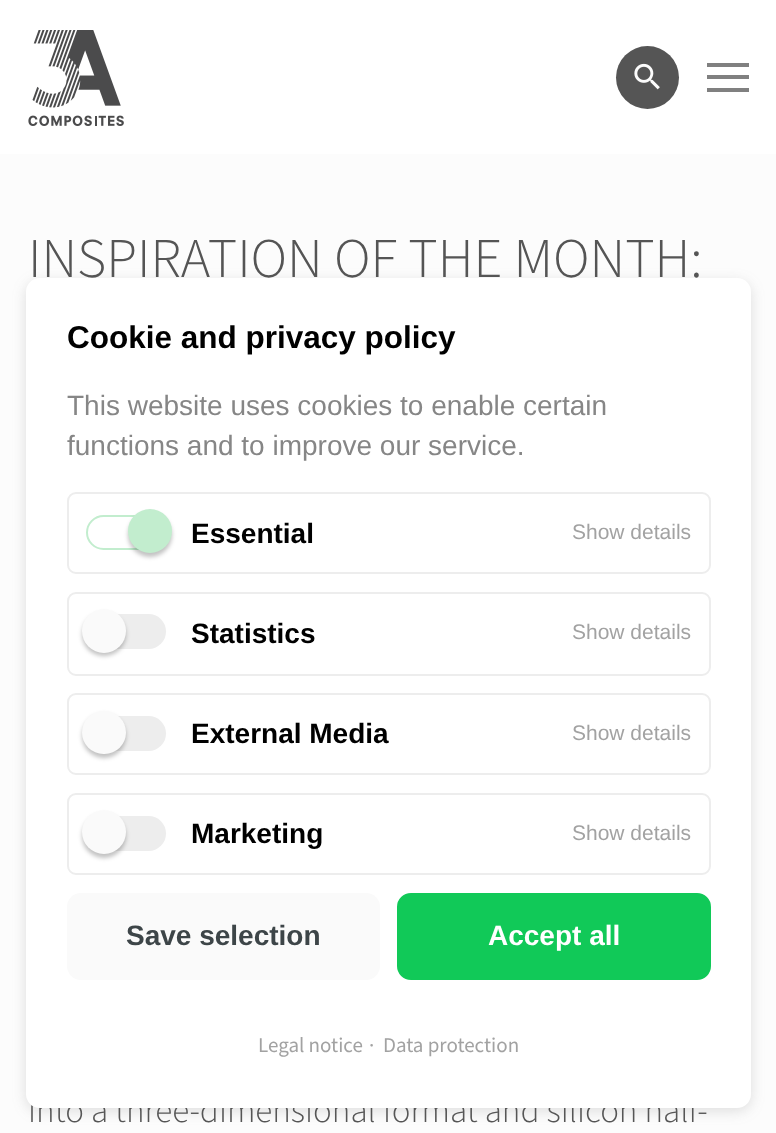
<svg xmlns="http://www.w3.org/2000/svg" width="776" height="1133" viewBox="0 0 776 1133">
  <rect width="100%" height="100%" fill="rgb(252,252,252)"/>
  <rect x="0" y="0" width="776" height="154" fill="rgb(255,255,255)"/>
  <image x="28" y="30" width="96" height="96" href="pic1.png"/>
  <circle cx="647.5" cy="77.5" r="31.5" fill="rgb(85,85,85)"/>
  <image x="634" y="63" width="26" height="27" href="pic2.png"/>
  <rect x="707" y="63" width="42" height="4" fill="rgb(128,128,128)"/>
  <rect x="707" y="75" width="42" height="4" fill="rgb(128,128,128)"/>
  <rect x="707" y="88" width="42" height="4" fill="rgb(128,128,128)"/>
  <text x="28" y="277" font-family="'Source Sans 3'" font-size="56" font-weight="300" fill="rgb(85,85,85)">INSPIRATION OF THE MONTH:</text>
  <text x="28" y="1122" font-family="'Source Sans 3'" font-size="35" font-weight="300" fill="rgb(85,85,85)">into a three-dimensional format and silicon half-</text>
  <rect x="26" y="282" width="725" height="829" rx="14" fill="rgba(99,99,99,0.2)" filter="blur(7px)"/>
  <rect x="26" y="278" width="725" height="830" rx="14" fill="rgb(255,255,255)"/>
  <text x="67" y="348" font-family="Liberation Sans" font-size="31.5" font-weight="bold" fill="rgb(0,0,0)">Cookie and privacy policy</text>
  <g font-family="Liberation Sans" font-size="28" fill="rgb(134,134,134)">
    <text>
      <tspan x="67" y="415">This website uses cookies to enable certain</tspan>
      <tspan x="67" y="455">functions and to improve our service.</tspan>
    </text>
  </g>
  <rect x="68" y="493" width="642" height="80" rx="8" fill="none" stroke="rgb(237,237,237)" stroke-width="2"/>
  <rect x="87" y="516" width="78" height="33" rx="16.5" fill="none" stroke="rgb(194,237,206)" stroke-width="2"/>
  <rect x="128" y="513" width="44" height="44" rx="22" fill="rgba(0,0,0,0.24)" filter="blur(2px)"/>
  <circle cx="150" cy="531" r="22" fill="rgb(194,237,206)"/>
  <text x="191" y="543" font-family="Liberation Sans" font-size="28" font-weight="bold" fill="rgb(0,0,0)">Essential</text>
  <text x="572" y="539" font-family="Liberation Sans" font-size="21" fill="rgb(162,162,162)">Show details</text>
  <rect x="68" y="593" width="642" height="82" rx="8" fill="none" stroke="rgb(237,237,237)" stroke-width="2"/>
  <rect x="86" y="614" width="80" height="35" rx="17.5" fill="rgb(237,237,237)"/>
  <rect x="82" y="613" width="44" height="43" rx="21.5" fill="rgba(0,0,0,0.24)" filter="blur(2px)"/>
  <circle cx="104" cy="631" r="22" fill="rgb(250,250,250)"/>
  <text x="191" y="643" font-family="Liberation Sans" font-size="28" font-weight="bold" fill="rgb(0,0,0)">Statistics</text>
  <text x="572" y="639" font-family="Liberation Sans" font-size="21" fill="rgb(162,162,162)">Show details</text>
  <rect x="68" y="694" width="642" height="80" rx="8" fill="none" stroke="rgb(237,237,237)" stroke-width="2"/>
  <rect x="86" y="716" width="80" height="35" rx="17.5" fill="rgb(237,237,237)"/>
  <rect x="82" y="714" width="44" height="44" rx="22" fill="rgba(0,0,0,0.24)" filter="blur(2px)"/>
  <rect x="82" y="711" width="44" height="43" rx="21.5" fill="rgb(250,250,250)"/>
  <text x="191" y="743" font-family="Liberation Sans" font-size="28" font-weight="bold" fill="rgb(0,0,0)">External Media</text>
  <text x="572" y="740" font-family="Liberation Sans" font-size="21" fill="rgb(162,162,162)">Show details</text>
  <rect x="68" y="794" width="642" height="80" rx="8" fill="none" stroke="rgb(237,237,237)" stroke-width="2"/>
  <rect x="86" y="816" width="80" height="35" rx="17.5" fill="rgb(237,237,237)"/>
  <rect x="82" y="814" width="44" height="44" rx="22" fill="rgba(0,0,0,0.24)" filter="blur(2px)"/>
  <circle cx="104" cy="832" r="22" fill="rgb(250,250,250)"/>
  <text x="191" y="843" font-family="Liberation Sans" font-size="28" font-weight="bold" fill="rgb(0,0,0)">Marketing</text>
  <text x="572" y="840" font-family="Liberation Sans" font-size="21" fill="rgb(162,162,162)">Show details</text>
  <rect x="67" y="893" width="313" height="87" rx="14" fill="rgb(250,250,250)"/>
  <text x="126" y="945" font-family="Liberation Sans" font-size="28" font-weight="bold" fill="rgb(61,69,72)">Save selection</text>
  <rect x="398" y="894" width="312" height="85" rx="13" fill="rgb(17,201,88)" stroke="rgb(17,201,88)" stroke-width="2"/>
  <text x="488" y="945" font-family="Liberation Sans" font-size="28" font-weight="bold" fill="rgb(255,255,255)">Accept all</text>
  <g font-family="'Source Sans 3'" font-size="21" fill="rgb(162,162,162)">
    <text x="258" y="1052">Legal notice</text>
    <text x="369" y="1052">·</text>
    <text x="383" y="1052">Data protection</text>
  </g>
</svg>
